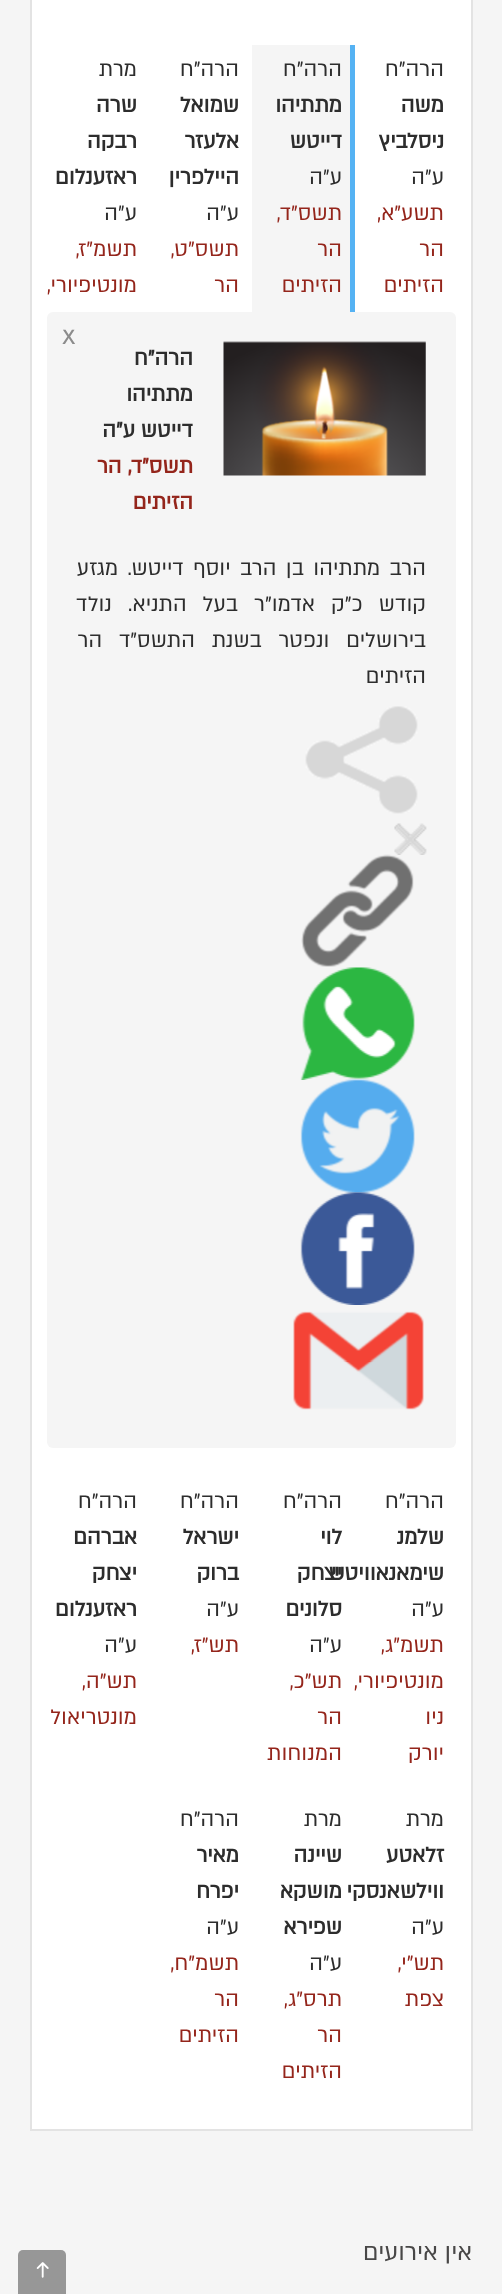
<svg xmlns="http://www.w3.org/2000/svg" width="502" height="2294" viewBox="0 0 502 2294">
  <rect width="100%" height="100%" fill="rgb(245,245,245)"/>
  <rect x="32" y="0" width="439" height="2129" fill="rgb(255,255,255)"/>
  <rect x="471" y="0" width="2" height="2130" fill="rgb(227,227,227)"/>
  <rect x="30" y="2129" width="443" height="2" fill="rgb(227,227,227)"/>
  <rect x="30" y="0" width="2" height="2130" fill="rgb(227,227,227)"/>
  <rect x="252" y="45" width="98" height="267" fill="rgb(245,245,245)"/>
  <rect x="350" y="45" width="5" height="267" fill="rgb(85,178,243)"/>
  <text x="342" y="76" font-family="'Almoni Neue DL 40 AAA'" font-size="24" direction="rtl" fill="rgb(45,45,45)">הרה"ח</text>
  <g font-family="'Almoni Neue DL 40 AAA'" font-size="24" font-weight="bold" direction="rtl" fill="rgb(45,45,45)">
    <text>
      <tspan x="342" y="112">מתתיהו</tspan>
      <tspan x="342" y="148">דייטש</tspan>
    </text>
  </g>
  <text x="342" y="184" font-family="'Almoni Neue DL 40 AAA'" font-size="24" direction="rtl" fill="rgb(45,45,45)">ע״ה</text>
  <g font-family="'Almoni Neue DL 40 AAA'" font-size="24" direction="rtl" fill="rgb(148,37,27)">
    <text>
      <tspan x="342" y="220">תשס"ד,</tspan>
      <tspan x="342" y="256">הר</tspan>
      <tspan x="342" y="292">הזיתים</tspan>
    </text>
  </g>
  <rect x="47" y="312" width="409" height="1136" rx="6" fill="rgb(245,245,245)"/>
  <text x="62" y="344" font-family="'Almoni Neue DL 40 AAA'" font-size="30" fill="rgb(140,140,140)">x</text>
  <image x="223" y="341" width="203" height="135" href="pic1.png"/>
  <g font-family="'Almoni Neue DL 40 AAA'" font-size="24" font-weight="bold" direction="rtl" fill="rgb(45,45,45)">
    <text>
      <tspan x="193" y="365">הרה"ח</tspan>
      <tspan x="193" y="401">מתתיהו</tspan>
      <tspan x="193" y="437">דייטש</tspan>
    </text>
    <text x="135" y="437">ע״ה</text>
  </g>
  <g font-family="'Almoni Neue DL 40 AAA'" font-size="24" font-weight="bold" direction="rtl" fill="rgb(148,37,27)">
    <text>
      <tspan x="193" y="473">תשס"ד, הר</tspan>
      <tspan x="193" y="509">הזיתים</tspan>
    </text>
  </g>
  <g font-family="'Almoni Neue DL 40 AAA'" font-size="24" direction="rtl" fill="rgb(45,45,45)">
    <text>
      <tspan x="426" y="575" word-spacing="3.25">הרב מתתיהו בן הרב יוסף דייטש. מגזע</tspan>
      <tspan x="426" y="611" word-spacing="10">קודש כ"ק אדמו"ר בעל התניא. נולד</tspan>
      <tspan x="426" y="647" word-spacing="10.5">בירושלים ונפטר בשנת התשס"ד הר</tspan>
      <tspan x="426" y="683">הזיתים</tspan>
    </text>
  </g>
  <image x="305" y="706" width="113" height="108" href="pic2.png"/>
  <image x="394" y="823" width="33" height="32" href="pic3.png"/>
  <image x="301" y="854" width="113" height="113" href="pic4.png"/>
  <image x="300" y="967" width="115" height="113" href="pic5.png"/>
  <image x="300" y="1079" width="115" height="114" href="pic6.png"/>
  <image x="300" y="1192" width="115" height="113" href="pic7.png"/>
  <image x="293" y="1311" width="131" height="99" href="pic8.png"/>
  <text x="444" y="76" font-family="'Almoni Neue DL 40 AAA'" font-size="24" direction="rtl" fill="rgb(45,45,45)">הרה"ח</text>
  <g font-family="'Almoni Neue DL 40 AAA'" font-size="24" font-weight="bold" direction="rtl" fill="rgb(45,45,45)">
    <text>
      <tspan x="444" y="112">משה</tspan>
      <tspan x="444" y="148">ניסלביץ</tspan>
    </text>
  </g>
  <text x="444" y="184" font-family="'Almoni Neue DL 40 AAA'" font-size="24" direction="rtl" fill="rgb(45,45,45)">ע״ה</text>
  <g font-family="'Almoni Neue DL 40 AAA'" font-size="24" direction="rtl" fill="rgb(148,37,27)">
    <text>
      <tspan x="444" y="220">תשע"א,</tspan>
      <tspan x="444" y="256">הר</tspan>
      <tspan x="444" y="292">הזיתים</tspan>
    </text>
  </g>
  <text x="239" y="76" font-family="'Almoni Neue DL 40 AAA'" font-size="24" direction="rtl" fill="rgb(45,45,45)">הרה"ח</text>
  <g font-family="'Almoni Neue DL 40 AAA'" font-size="24" font-weight="bold" direction="rtl" fill="rgb(45,45,45)">
    <text>
      <tspan x="239" y="112">שמואל</tspan>
      <tspan x="239" y="148">אלעזר</tspan>
      <tspan x="239" y="184">היילפרין</tspan>
    </text>
  </g>
  <text x="239" y="220" font-family="'Almoni Neue DL 40 AAA'" font-size="24" direction="rtl" fill="rgb(45,45,45)">ע״ה</text>
  <g font-family="'Almoni Neue DL 40 AAA'" font-size="24" direction="rtl" fill="rgb(148,37,27)">
    <text>
      <tspan x="239" y="256">תשס"ט,</tspan>
      <tspan x="239" y="292">הר</tspan>
    </text>
  </g>
  <text x="137" y="76" font-family="'Almoni Neue DL 40 AAA'" font-size="24" direction="rtl" fill="rgb(45,45,45)">מרת</text>
  <g font-family="'Almoni Neue DL 40 AAA'" font-size="24" font-weight="bold" direction="rtl" fill="rgb(45,45,45)">
    <text>
      <tspan x="137" y="112">שרה</tspan>
      <tspan x="137" y="148">רבקה</tspan>
      <tspan x="137" y="184">ראזענלום</tspan>
    </text>
  </g>
  <text x="137" y="220" font-family="'Almoni Neue DL 40 AAA'" font-size="24" direction="rtl" fill="rgb(45,45,45)">ע״ה</text>
  <g font-family="'Almoni Neue DL 40 AAA'" font-size="24" direction="rtl" fill="rgb(148,37,27)">
    <text>
      <tspan x="137" y="256">תשמ"ז,</tspan>
      <tspan x="137" y="292">מונטיפיורי,</tspan>
    </text>
  </g>
  <text x="444" y="1508" font-family="'Almoni Neue DL 40 AAA'" font-size="24" direction="rtl" fill="rgb(45,45,45)">הרה"ח</text>
  <g font-family="'Almoni Neue DL 40 AAA'" font-size="24" font-weight="bold" direction="rtl" fill="rgb(45,45,45)">
    <text>
      <tspan x="444" y="1544">שלמנ</tspan>
      <tspan x="444" y="1580">שימאנאוויטש</tspan>
    </text>
  </g>
  <text x="444" y="1616" font-family="'Almoni Neue DL 40 AAA'" font-size="24" direction="rtl" fill="rgb(45,45,45)">ע״ה</text>
  <g font-family="'Almoni Neue DL 40 AAA'" font-size="24" direction="rtl" fill="rgb(148,37,27)">
    <text>
      <tspan x="444" y="1652">תשמ"ג,</tspan>
      <tspan x="444" y="1688">מונטיפיורי,</tspan>
      <tspan x="444" y="1724">ניו</tspan>
      <tspan x="444" y="1760">יורק</tspan>
    </text>
  </g>
  <text x="342" y="1508" font-family="'Almoni Neue DL 40 AAA'" font-size="24" direction="rtl" fill="rgb(45,45,45)">הרה"ח</text>
  <g font-family="'Almoni Neue DL 40 AAA'" font-size="24" font-weight="bold" direction="rtl" fill="rgb(45,45,45)">
    <text>
      <tspan x="342" y="1544">לוי</tspan>
      <tspan x="342" y="1580">יצחק</tspan>
      <tspan x="342" y="1616">סלונים</tspan>
    </text>
  </g>
  <text x="342" y="1652" font-family="'Almoni Neue DL 40 AAA'" font-size="24" direction="rtl" fill="rgb(45,45,45)">ע״ה</text>
  <g font-family="'Almoni Neue DL 40 AAA'" font-size="24" direction="rtl" fill="rgb(148,37,27)">
    <text>
      <tspan x="342" y="1688">תש"כ,</tspan>
      <tspan x="342" y="1724">הר</tspan>
      <tspan x="342" y="1760">המנוחות</tspan>
    </text>
  </g>
  <text x="239" y="1508" font-family="'Almoni Neue DL 40 AAA'" font-size="24" direction="rtl" fill="rgb(45,45,45)">הרה"ח</text>
  <g font-family="'Almoni Neue DL 40 AAA'" font-size="24" font-weight="bold" direction="rtl" fill="rgb(45,45,45)">
    <text>
      <tspan x="239" y="1544">ישראל</tspan>
      <tspan x="239" y="1580">ברוק</tspan>
    </text>
  </g>
  <text x="239" y="1616" font-family="'Almoni Neue DL 40 AAA'" font-size="24" direction="rtl" fill="rgb(45,45,45)">ע״ה</text>
  <text x="239" y="1652" font-family="'Almoni Neue DL 40 AAA'" font-size="24" direction="rtl" fill="rgb(148,37,27)">תש"ז,</text>
  <text x="137" y="1508" font-family="'Almoni Neue DL 40 AAA'" font-size="24" direction="rtl" fill="rgb(45,45,45)">הרה"ח</text>
  <g font-family="'Almoni Neue DL 40 AAA'" font-size="24" font-weight="bold" direction="rtl" fill="rgb(45,45,45)">
    <text>
      <tspan x="137" y="1544">אברהם</tspan>
      <tspan x="137" y="1580">יצחק</tspan>
      <tspan x="137" y="1616">ראזענלום</tspan>
    </text>
  </g>
  <text x="137" y="1652" font-family="'Almoni Neue DL 40 AAA'" font-size="24" direction="rtl" fill="rgb(45,45,45)">ע״ה</text>
  <g font-family="'Almoni Neue DL 40 AAA'" font-size="24" direction="rtl" fill="rgb(148,37,27)">
    <text>
      <tspan x="137" y="1688">תש"ה,</tspan>
      <tspan x="137" y="1724">מונטריאול</tspan>
    </text>
  </g>
  <text x="444" y="1826" font-family="'Almoni Neue DL 40 AAA'" font-size="24" direction="rtl" fill="rgb(45,45,45)">מרת</text>
  <g font-family="'Almoni Neue DL 40 AAA'" font-size="24" font-weight="bold" direction="rtl" fill="rgb(45,45,45)">
    <text>
      <tspan x="444" y="1862">זלאטע</tspan>
      <tspan x="444" y="1898">ווילשאנסקי</tspan>
    </text>
  </g>
  <text x="444" y="1934" font-family="'Almoni Neue DL 40 AAA'" font-size="24" direction="rtl" fill="rgb(45,45,45)">ע״ה</text>
  <g font-family="'Almoni Neue DL 40 AAA'" font-size="24" direction="rtl" fill="rgb(148,37,27)">
    <text>
      <tspan x="444" y="1970">תש"י,</tspan>
      <tspan x="444" y="2006">צפת</tspan>
    </text>
  </g>
  <text x="342" y="1826" font-family="'Almoni Neue DL 40 AAA'" font-size="24" direction="rtl" fill="rgb(45,45,45)">מרת</text>
  <g font-family="'Almoni Neue DL 40 AAA'" font-size="24" font-weight="bold" direction="rtl" fill="rgb(45,45,45)">
    <text>
      <tspan x="342" y="1862">שיינה</tspan>
      <tspan x="342" y="1898">מושקא</tspan>
      <tspan x="342" y="1934">שפירא</tspan>
    </text>
  </g>
  <text x="342" y="1970" font-family="'Almoni Neue DL 40 AAA'" font-size="24" direction="rtl" fill="rgb(45,45,45)">ע״ה</text>
  <g font-family="'Almoni Neue DL 40 AAA'" font-size="24" direction="rtl" fill="rgb(148,37,27)">
    <text>
      <tspan x="342" y="2006">תרס"ג,</tspan>
      <tspan x="342" y="2042">הר</tspan>
      <tspan x="342" y="2078">הזיתים</tspan>
    </text>
  </g>
  <text x="239" y="1826" font-family="'Almoni Neue DL 40 AAA'" font-size="24" direction="rtl" fill="rgb(45,45,45)">הרה"ח</text>
  <g font-family="'Almoni Neue DL 40 AAA'" font-size="24" font-weight="bold" direction="rtl" fill="rgb(45,45,45)">
    <text>
      <tspan x="239" y="1862">מאיר</tspan>
      <tspan x="239" y="1898">יפרח</tspan>
    </text>
  </g>
  <text x="239" y="1934" font-family="'Almoni Neue DL 40 AAA'" font-size="24" direction="rtl" fill="rgb(45,45,45)">ע״ה</text>
  <g font-family="'Almoni Neue DL 40 AAA'" font-size="24" direction="rtl" fill="rgb(148,37,27)">
    <text>
      <tspan x="239" y="1970">תשמ"ח,</tspan>
      <tspan x="239" y="2006">הר</tspan>
      <tspan x="239" y="2042">הזיתים</tspan>
    </text>
  </g>
  <text x="472" y="2260" font-family="'Almoni Neue DL 40 AAA'" font-size="27" direction="rtl" fill="rgb(72,71,71)">אין אירועים</text>
  <rect x="18" y="2250" width="48" height="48" rx="5" fill="rgb(151,151,151)"/>
  <image x="36" y="2262" width="13" height="16" href="pic9.png"/>
</svg>
